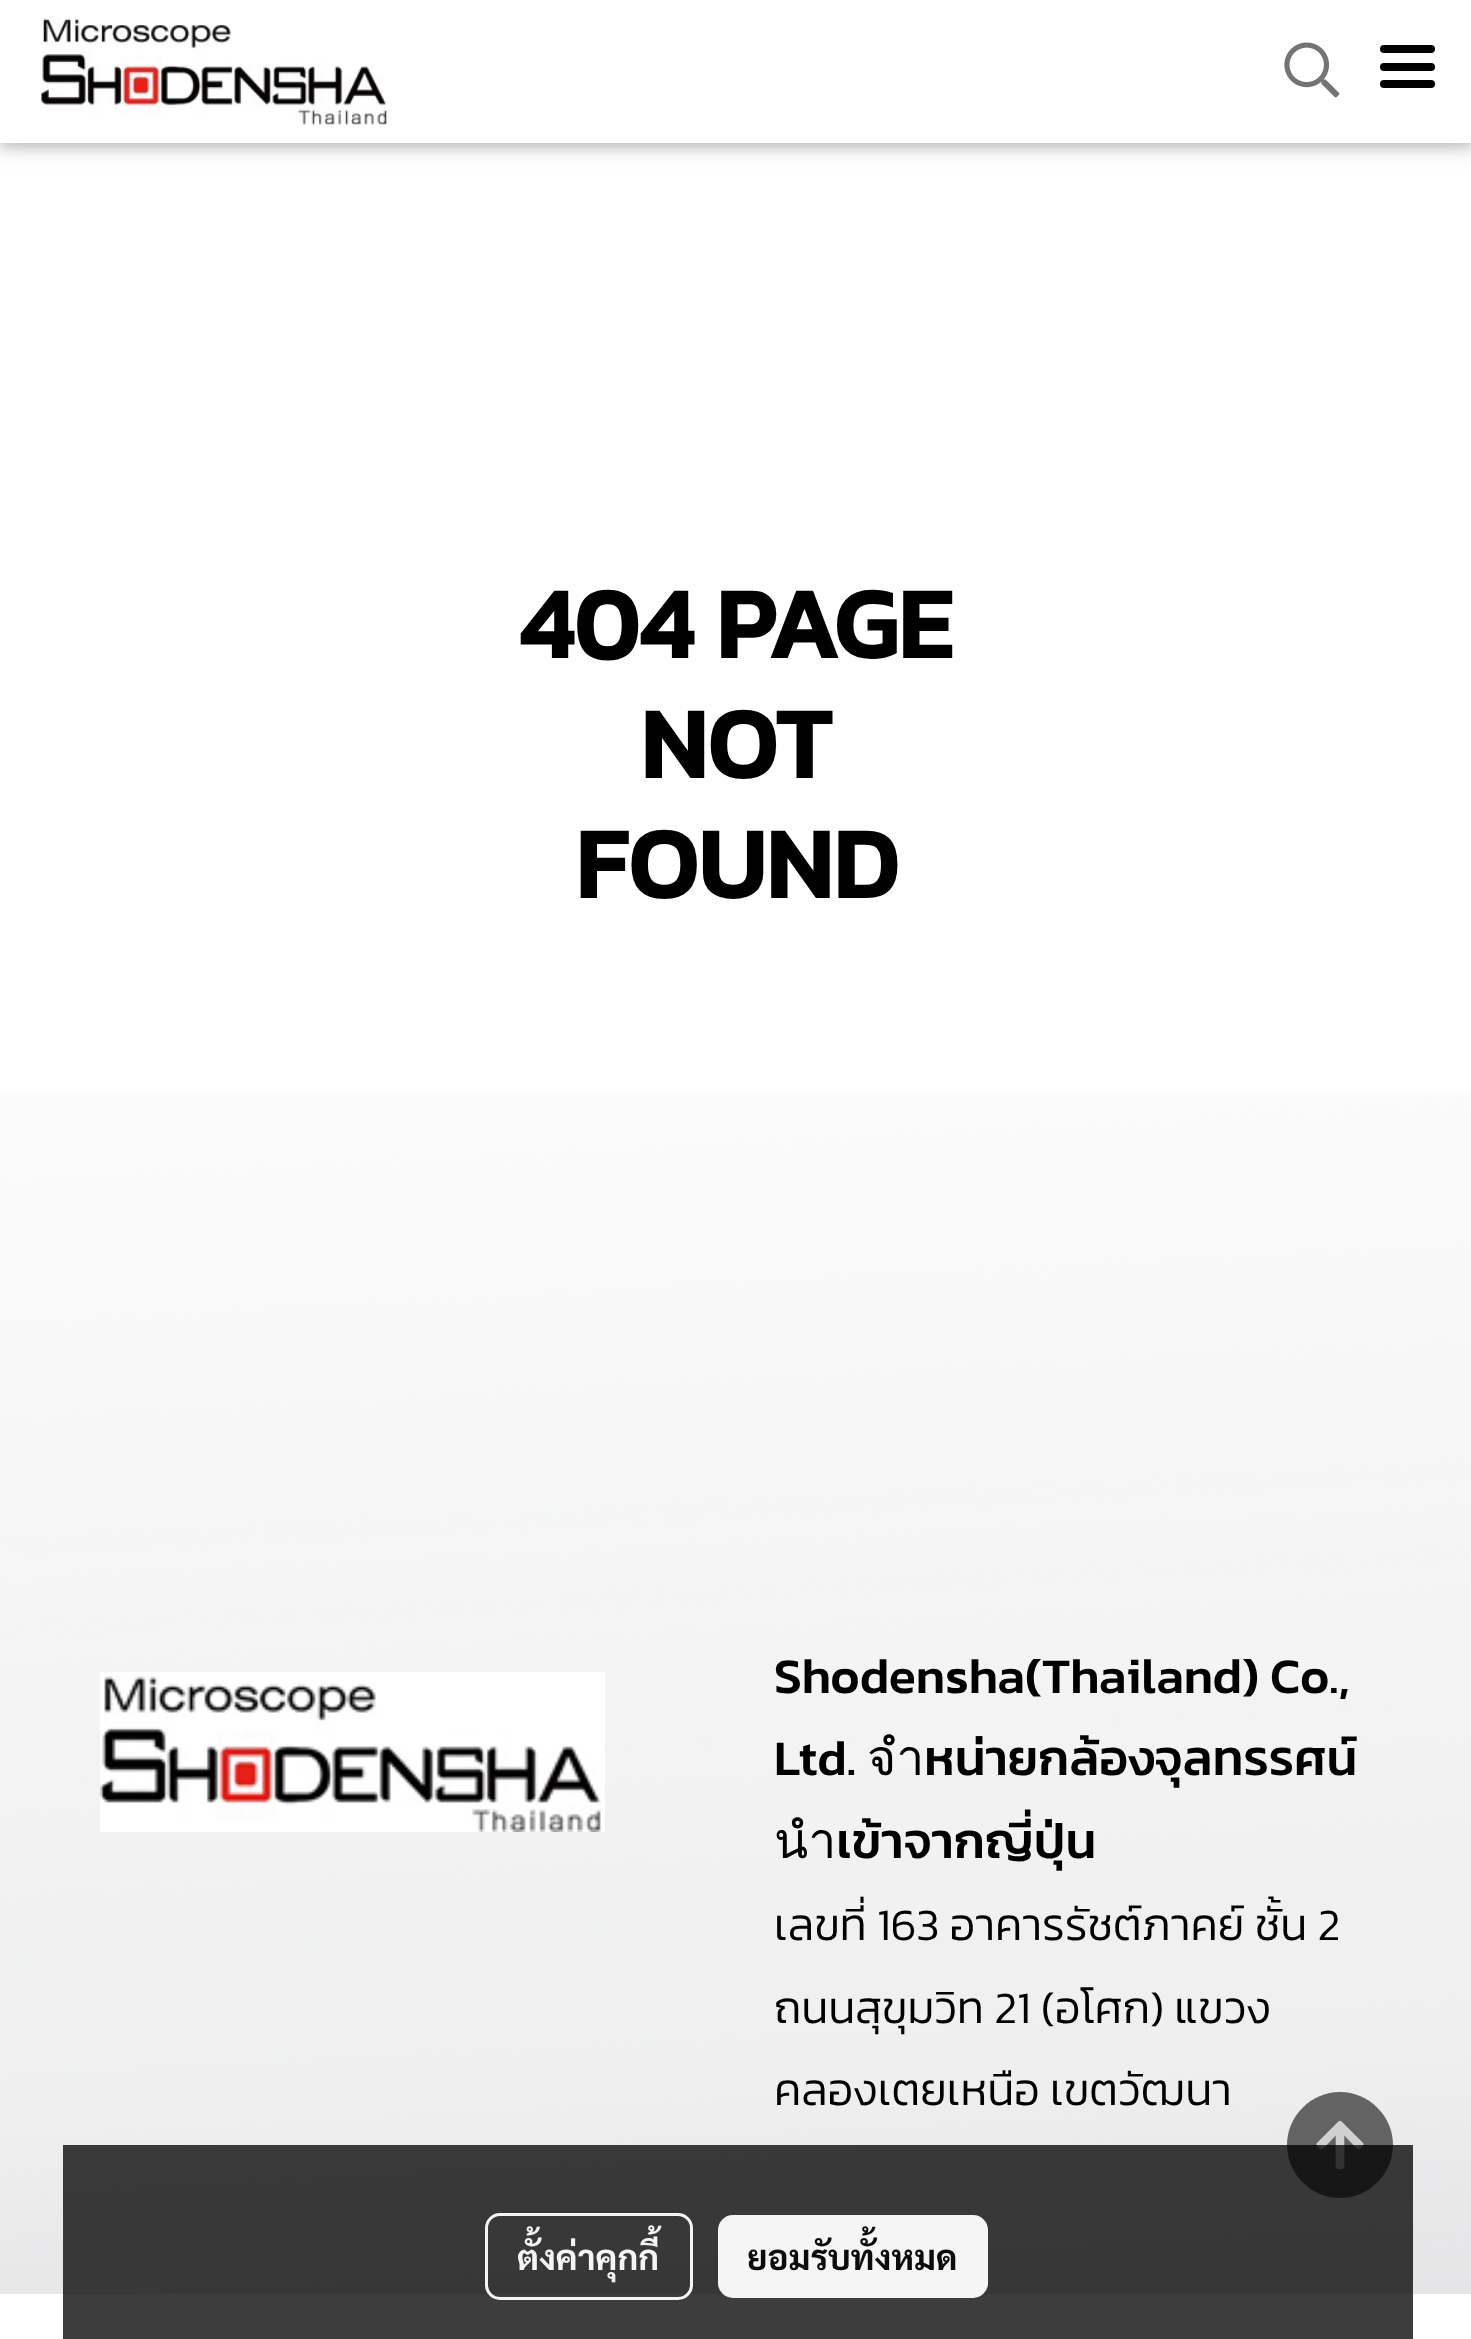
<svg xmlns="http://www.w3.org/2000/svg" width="1471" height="2339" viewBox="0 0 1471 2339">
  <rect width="100%" height="100%" fill="rgb(255,255,255)"/>
  <image x="0" y="1093" width="1471" height="1201" href="pic1.png"/>
  <rect x="0" y="5" width="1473" height="143" fill="rgba(0,0,0,0.12)" filter="blur(12.5px)"/>
  <rect x="0" y="5" width="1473" height="143" fill="rgba(0,0,0,0.16)" filter="blur(6px)"/>
  <rect x="0" y="0" width="1471" height="143" fill="rgb(255,255,255)"/>
  <image x="40" y="18" width="347" height="107" href="pic2.png"/>
  <image x="1284" y="42" width="56" height="56" href="pic3.png"/>
  <rect x="1380" y="63" width="55" height="8" rx="4" fill="rgb(0,0,0)"/>
  <rect x="1380" y="45" width="55" height="8" rx="4" fill="rgb(0,0,0)"/>
  <rect x="1380" y="80" width="55" height="8" rx="4" fill="rgb(0,0,0)"/>
  <g font-family="Kanit" font-size="100" font-weight="bold" fill="rgb(0,0,0)">
    <text x="519" y="658">404 PAGE</text>
    <text x="640" y="778">NOT</text>
    <text x="575" y="898">FOUND</text>
  </g>
  <image x="100" y="1672" width="505" height="160" href="pic4.png"/>
  <g font-family="Kanit" font-size="50" font-weight="500" fill="rgb(0,0,0)">
    <text>
      <tspan x="774" y="1693">Shodensha(Thailand) Co.,</tspan>
      <tspan x="774" y="1775">Ltd. จำหน่ายกล้องจุลทรรศน์</tspan>
      <tspan x="774" y="1858">นำเข้าจากญี่ปุ่น</tspan>
    </text>
  </g>
  <g font-family="Kanit" font-size="45" font-weight="300" fill="rgb(0,0,0)">
    <text>
      <tspan x="774" y="1940">เลขที่ 163 อาคารรัชต์ภาคย์ ชั้น 2</tspan>
      <tspan x="774" y="2023">ถนนสุขุมวิท 21 (อโศก) แขวง</tspan>
      <tspan x="774" y="2105">คลองเตยเหนือ เขตวัฒนา</tspan>
    </text>
  </g>
  <path d="M1340 2092C1311 2092 1287 2116 1287 2145C1287 2174 1311 2198 1340 2198C1369 2198 1393 2174 1393 2145C1393 2116 1369 2092 1340 2092Z" fill="rgba(43,42,42,0.7)"/>
  <image x="1316" y="2121" width="48" height="49" href="pic5.png"/>
  <rect x="63" y="2145" width="1350" height="194" fill="rgba(0,0,0,0.76)"/>
  <rect x="486.5" y="2214.5" width="205" height="84" rx="13.5" fill="none" stroke="rgba(255,255,255,0.95)" stroke-width="3"/>
  <text x="517" y="2270" font-family="Sarabun" font-size="35" font-weight="bold" fill="rgb(245,245,245)">ตั้งค่าคุกกี้</text>
  <rect x="718" y="2215" width="270" height="83" rx="15" fill="rgba(255,255,255,0.95)"/>
  <text x="747" y="2270" font-family="Sarabun" font-size="35" font-weight="bold" fill="rgb(12,12,12)">ยอมรับทั้งหมด</text>
</svg>
